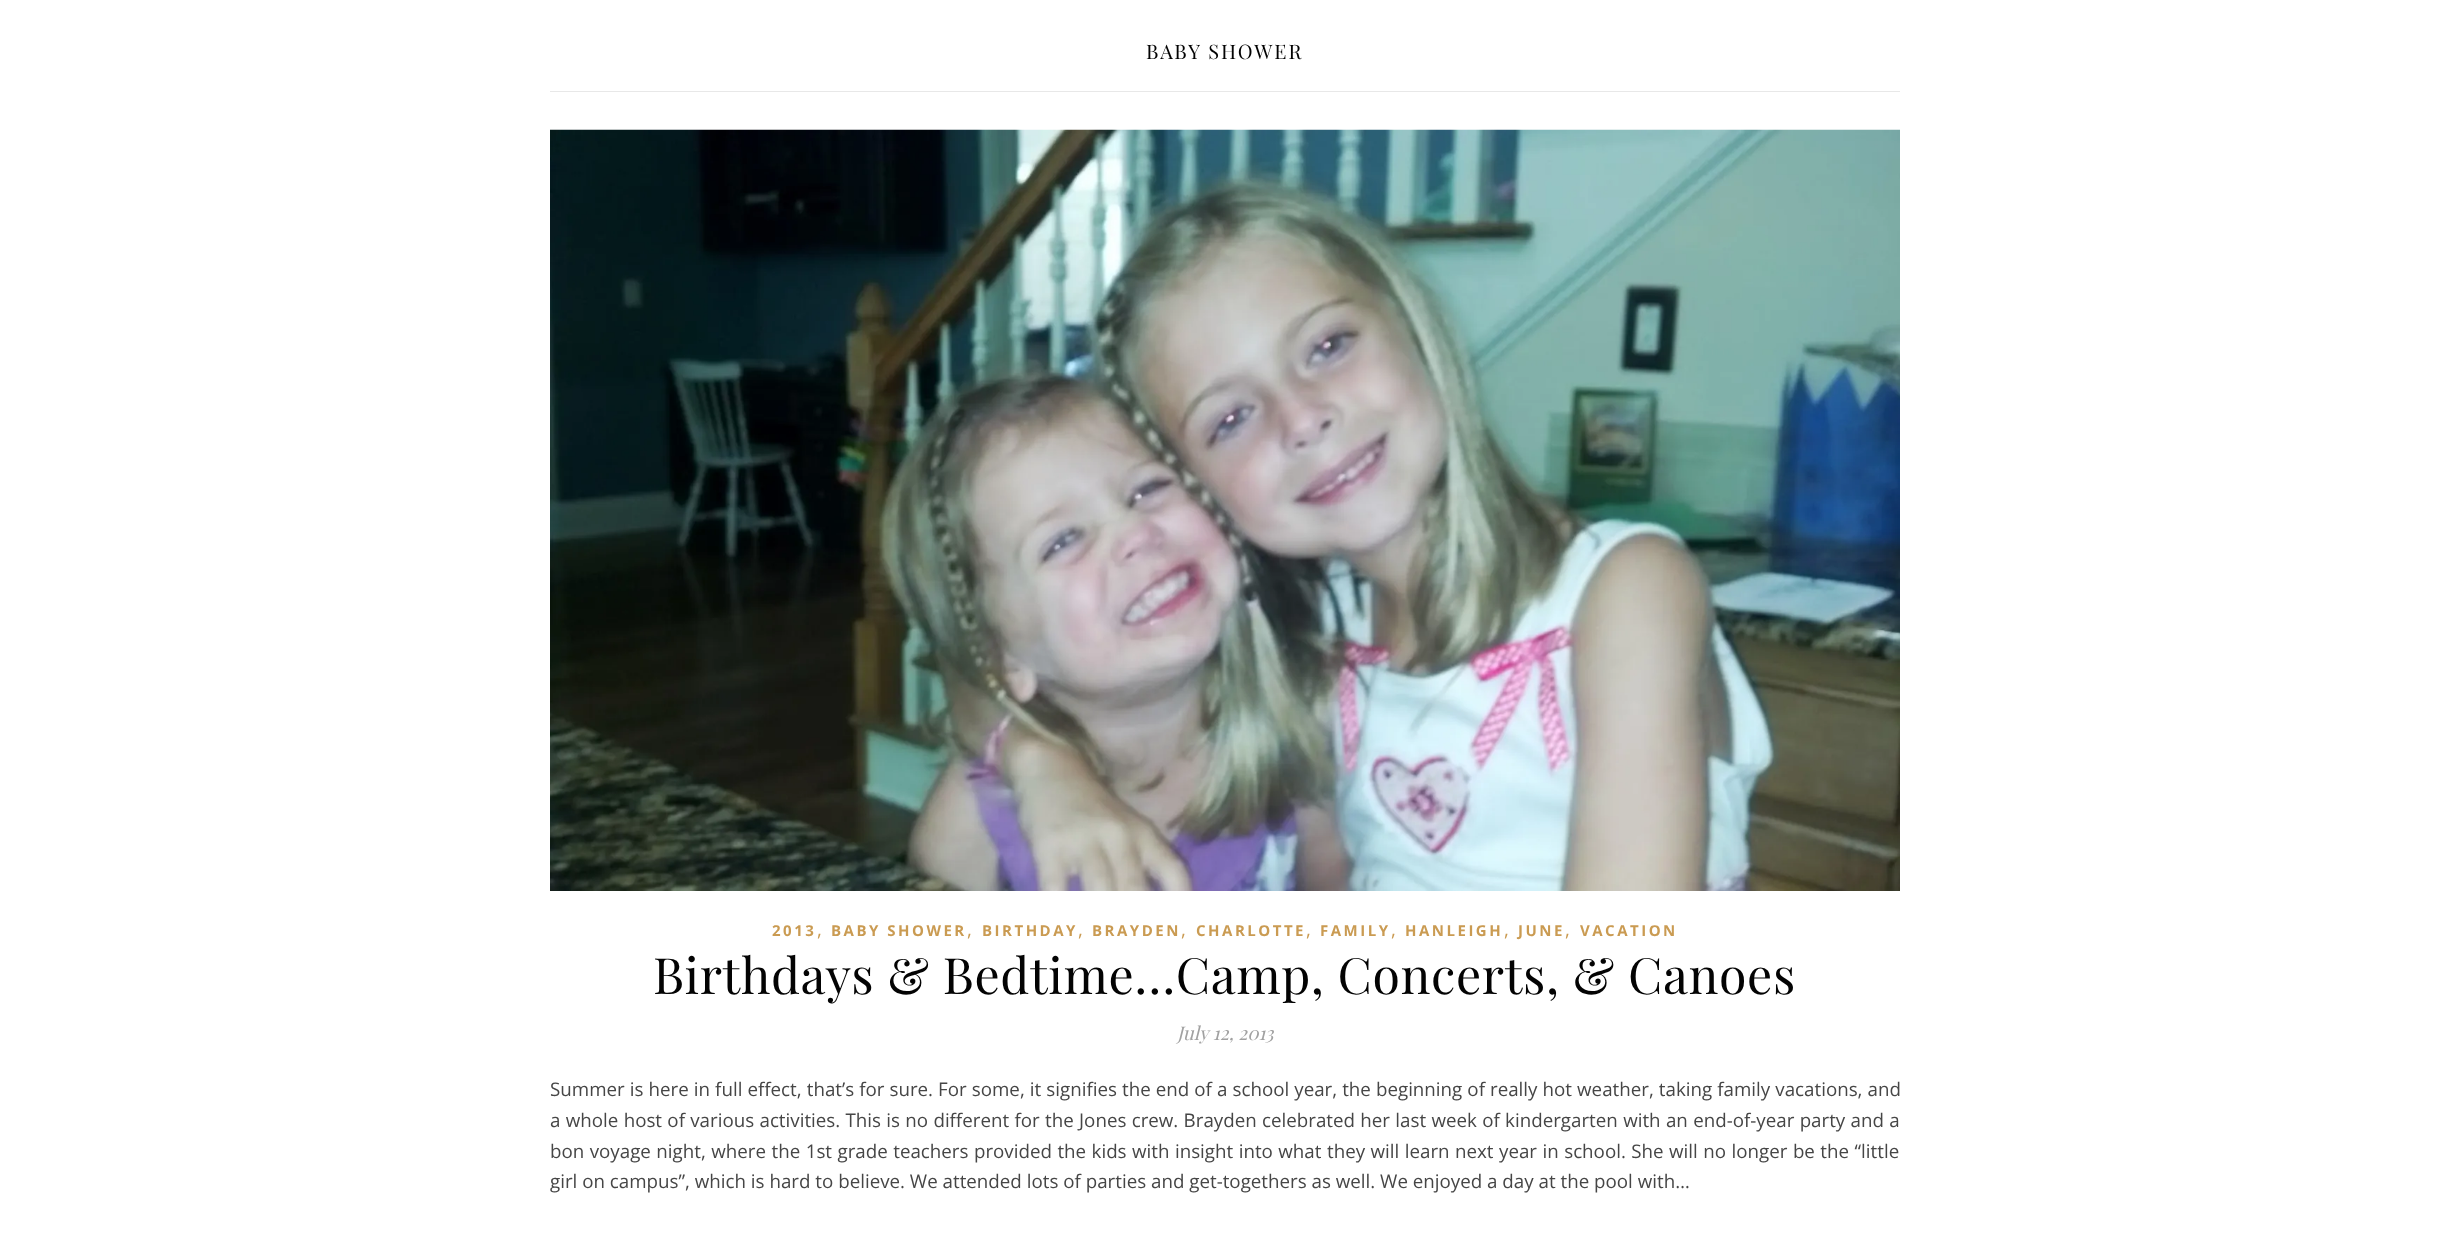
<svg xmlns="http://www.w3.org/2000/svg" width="2450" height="1237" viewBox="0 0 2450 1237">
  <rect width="100%" height="100%" fill="rgb(255,255,255)"/>
  <rect x="550" y="91" width="1350" height="1" fill="rgb(232,232,232)"/>
  <text x="1146" y="59" font-family="Playfair Display" font-size="20" letter-spacing="1.9" fill="rgb(3,3,3)">BABY SHOWER</text>
  <image x="550" y="129" width="1350" height="762" href="pic1.png"/>
  <text x="772" y="936" font-family="Open Sans" font-size="15" font-weight="bold" letter-spacing="2.5" fill="rgb(202,155,82)">2013</text>
  <text x="817" y="936" font-family="Open Sans" font-size="18.75" fill="rgb(202,155,82)">,</text>
  <text x="831" y="936" font-family="Open Sans" font-size="15" font-weight="bold" letter-spacing="2.5" fill="rgb(202,155,82)">BABY SHOWER</text>
  <text x="967" y="936" font-family="Open Sans" font-size="18.75" fill="rgb(202,155,82)">,</text>
  <text x="982" y="936" font-family="Open Sans" font-size="15" font-weight="bold" letter-spacing="2.5" fill="rgb(202,155,82)">BIRTHDAY</text>
  <text x="1078" y="936" font-family="Open Sans" font-size="18.75" fill="rgb(202,155,82)">,</text>
  <text x="1092" y="936" font-family="Open Sans" font-size="15" font-weight="bold" letter-spacing="2.5" fill="rgb(202,155,82)">BRAYDEN</text>
  <text x="1181" y="936" font-family="Open Sans" font-size="18.75" fill="rgb(202,155,82)">,</text>
  <text x="1196" y="936" font-family="Open Sans" font-size="15" font-weight="bold" letter-spacing="2.5" fill="rgb(202,155,82)">CHARLOTTE</text>
  <text x="1306" y="936" font-family="Open Sans" font-size="18.75" fill="rgb(202,155,82)">,</text>
  <text x="1320" y="936" font-family="Open Sans" font-size="15" font-weight="bold" letter-spacing="2.5" fill="rgb(202,155,82)">FAMILY</text>
  <text x="1391" y="936" font-family="Open Sans" font-size="18.75" fill="rgb(202,155,82)">,</text>
  <text x="1405" y="936" font-family="Open Sans" font-size="15" font-weight="bold" letter-spacing="2.5" fill="rgb(202,155,82)">HANLEIGH</text>
  <text x="1504" y="936" font-family="Open Sans" font-size="18.75" fill="rgb(202,155,82)">,</text>
  <text x="1518" y="936" font-family="Open Sans" font-size="15" font-weight="bold" letter-spacing="2.5" fill="rgb(202,155,82)">JUNE</text>
  <text x="1565" y="936" font-family="Open Sans" font-size="18.75" fill="rgb(202,155,82)">,</text>
  <text x="1580" y="936" font-family="Open Sans" font-size="15" font-weight="bold" letter-spacing="2.5" fill="rgb(202,155,82)">VACATION</text>
  <text x="653" y="994" font-family="Playfair Display" font-size="50" letter-spacing="0.6" fill="rgb(3,3,3)">Birthdays &amp; Bedtime…Camp, Concerts, &amp; Canoes</text>
  <text x="1177" y="1040" font-family="Playfair Display" font-size="18.75" font-style="italic" fill="rgb(161,161,161)">July 12, 2013</text>
  <g font-family="Open Sans" font-size="18.75" fill="rgb(70,70,70)">
    <text>
      <tspan x="550" y="1096" word-spacing="0.2">Summer is here in full effect, that’s for sure. For some, it signifies the end of a school year, the beginning of really hot weather, taking family vacations, and</tspan>
      <tspan x="550" y="1127" word-spacing="0.45">a whole host of various activities. This is no different for the Jones crew. Brayden celebrated her last week of kindergarten with an end-of-year party and a</tspan>
      <tspan x="550" y="1158" word-spacing="0.6">bon voyage night, where the 1st grade teachers provided the kids with insight into what they will learn next year in school. She will no longer be the “little</tspan>
      <tspan x="550" y="1188">girl on campus”, which is hard to believe. We attended lots of parties and get-togethers as well. We enjoyed a day at the pool with…</tspan>
    </text>
  </g>
</svg>
